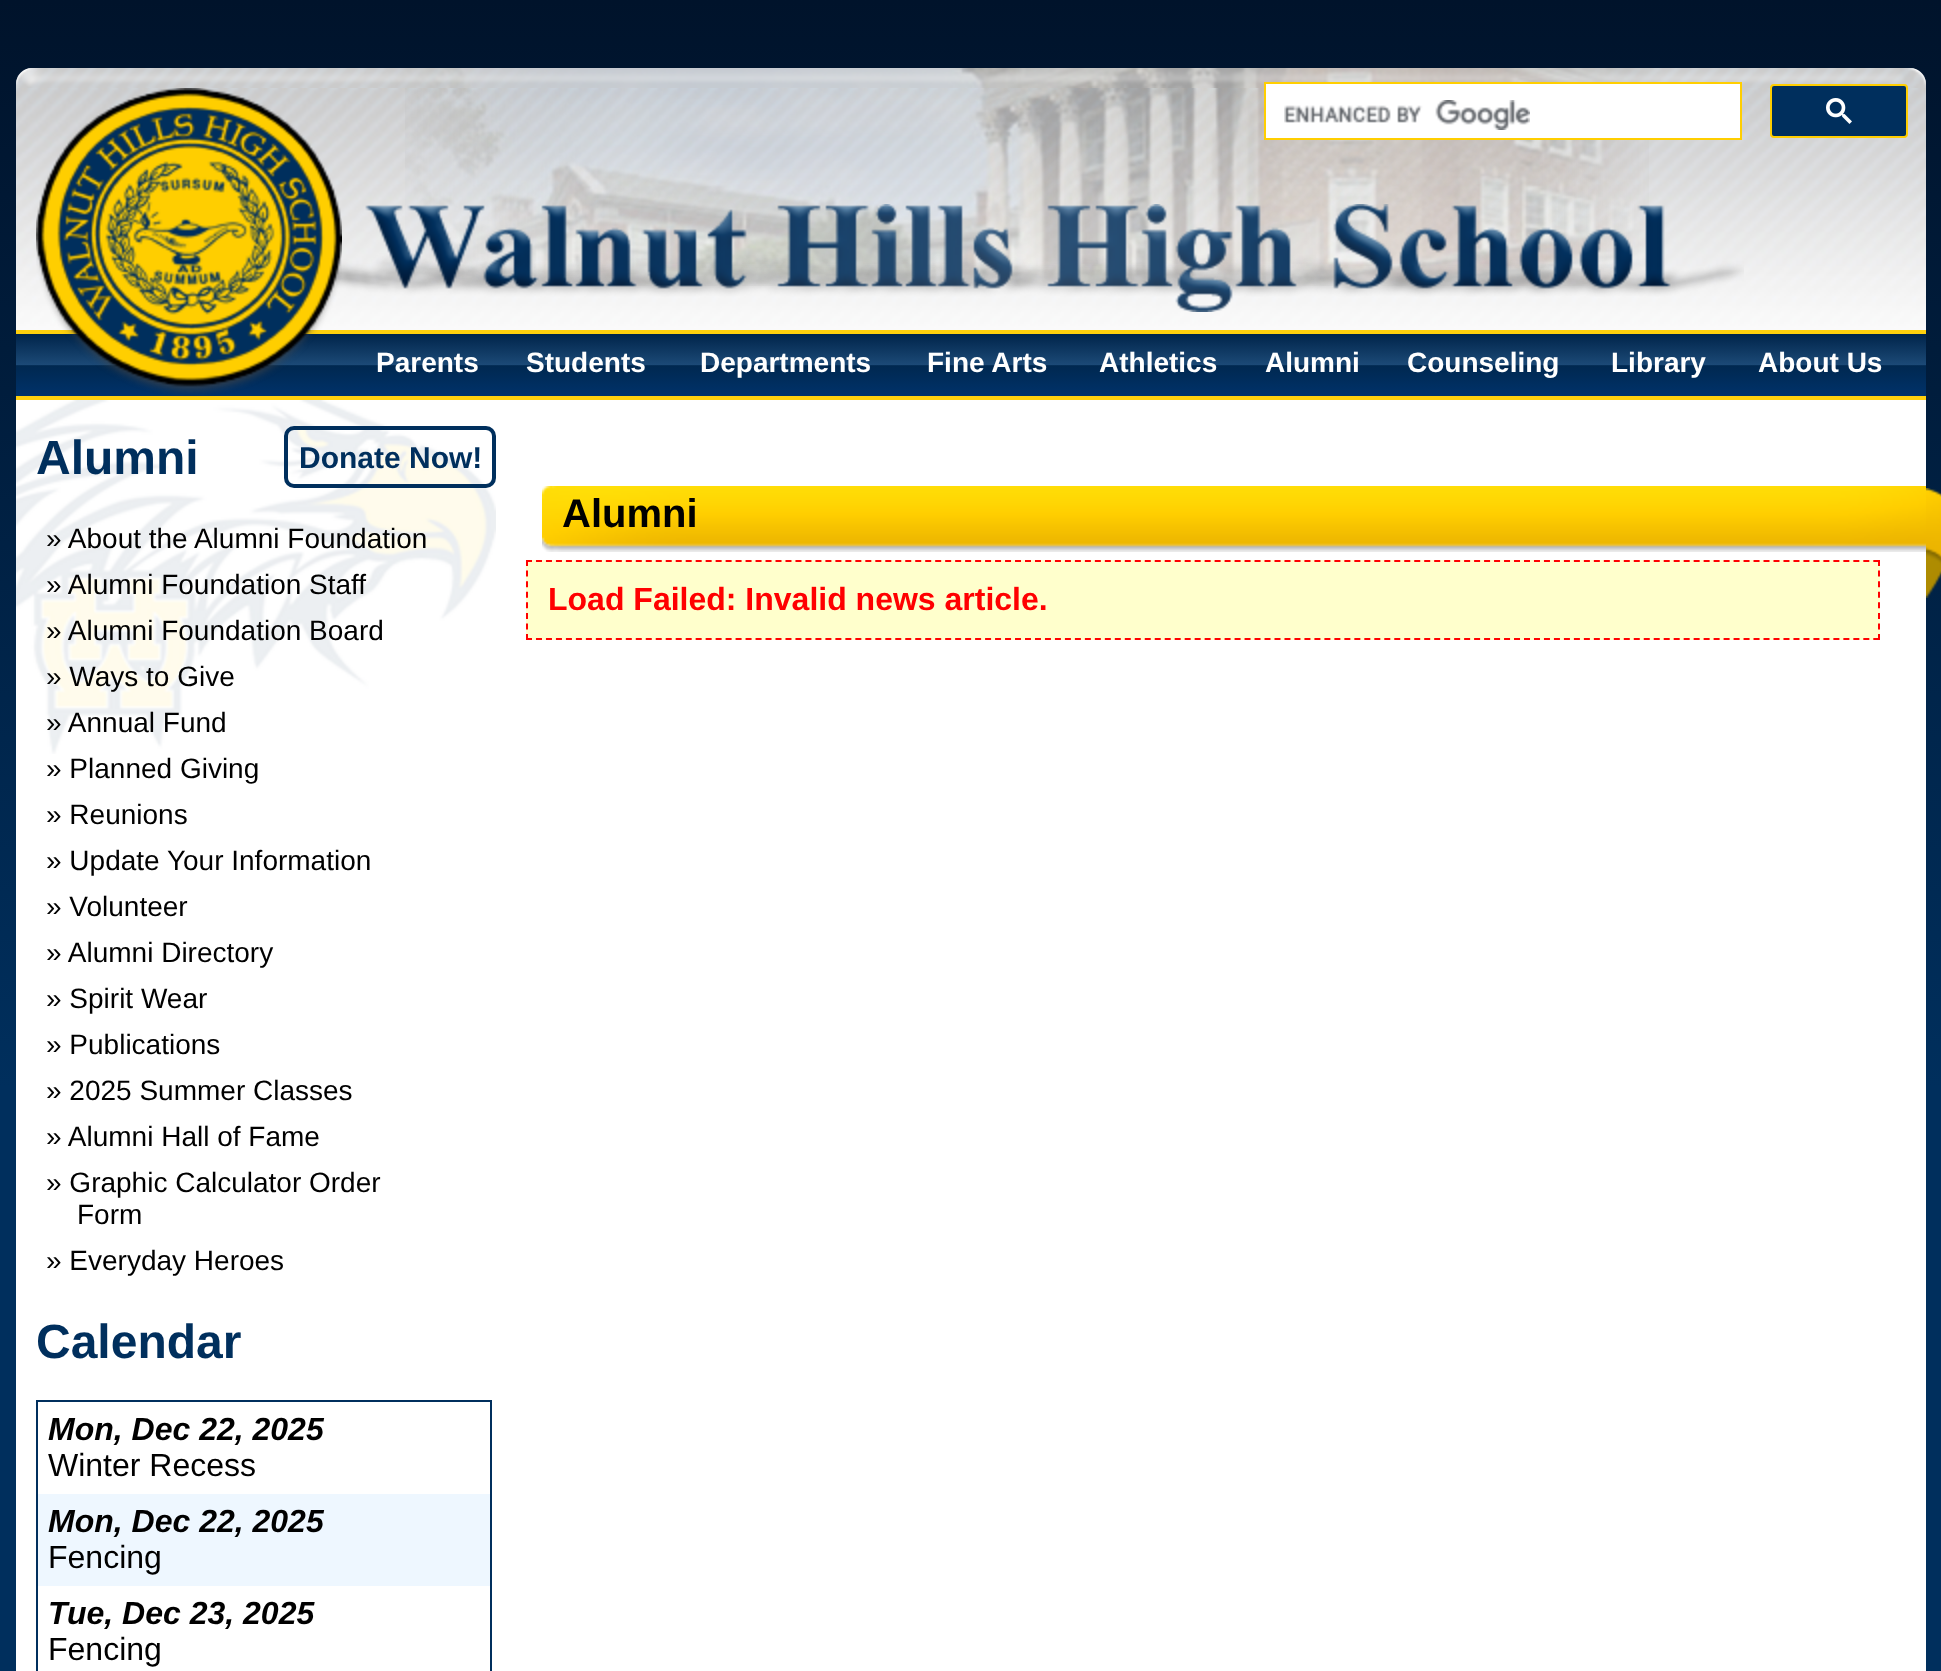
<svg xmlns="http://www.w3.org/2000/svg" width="1941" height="1671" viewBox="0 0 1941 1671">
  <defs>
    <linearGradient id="g1" gradientUnits="userSpaceOnUse" x1="971" y1="0" x2="971" y2="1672"><stop offset="0" stop-color="rgb(0,19,43)"/><stop offset="0.65" stop-color="rgb(0,47,93)"/></linearGradient>
    <linearGradient id="g2" gradientUnits="userSpaceOnUse" x1="971" y1="334" x2="971" y2="396"><stop offset="0" stop-color="rgb(0,36,74)"/><stop offset="0.5" stop-color="rgb(28,74,119)"/><stop offset="0.51" stop-color="rgb(0,40,80)"/><stop offset="1" stop-color="rgb(0,50,106)"/></linearGradient>
  </defs>
  <rect width="100%" height="100%" fill="rgb(255,255,255)"/>
  <rect x="0" y="0" width="1941" height="1671" fill="url(#g1)"/>
  <path d="M32 68H1910C1919 68 1926 75 1926 84V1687H16V84C16 75 23 68 32 68Z" fill="rgb(255,255,255)"/>
  <image x="16" y="68" width="1910" height="20" href="pic1.png"/>
  <image x="16" y="88" width="1910" height="242" href="pic2.png"/>
  <image x="405" y="88" width="1244" height="198" href="pic6.png"/>
  <image x="331" y="204" width="1413" height="108" href="pic7.png"/>
  <rect x="16" y="334" width="1910" height="62" fill="url(#g2)"/>
  <rect x="16" y="330" width="1910" height="4" fill="rgb(255,208,13)"/>
  <rect x="16" y="396" width="1910" height="4" fill="rgb(255,208,13)"/>
  <image x="36" y="88" width="306" height="309" href="pic3.png"/>
  <rect x="1265" y="83" width="476" height="56" fill="rgb(255,255,255)" stroke="rgb(255,206,0)" stroke-width="2"/>
  <image x="1284" y="100" width="246" height="30" href="pic4.png"/>
  <rect x="1771" y="85" width="136" height="52" rx="3" fill="rgb(0,47,93)" stroke="rgb(255,206,0)" stroke-width="2"/>
  <image x="1826" y="98" width="26" height="26" href="pic5.png"/>
  <g font-family="Liberation Sans" font-size="28" font-weight="bold" fill="rgb(255,255,255)">
    <text x="376" y="372">Parents</text>
    <text x="526" y="372">Students</text>
    <text x="700" y="372">Departments</text>
    <text x="927" y="372">Fine Arts</text>
    <text x="1099" y="372">Athletics</text>
    <text x="1265" y="372">Alumni</text>
    <text x="1407" y="372">Counseling</text>
    <text x="1611" y="372">Library</text>
    <text x="1758" y="372">About Us</text>
  </g>
  <image x="16" y="400" width="480" height="354" href="pic8.png"/>
  <text x="36" y="474" font-family="Liberation Sans" font-size="48" font-weight="bold" fill="rgb(0,47,93)">Alumni</text>
  <rect x="286" y="428" width="208" height="58" rx="8" fill="none" stroke="rgb(0,47,93)" stroke-width="4"/>
  <text x="299" y="468" font-family="Liberation Sans" font-size="30" font-weight="bold" fill="rgb(0,47,93)">Donate Now!</text>
  <g font-family="Liberation Sans" font-size="28" fill="rgb(0,0,0)">
    <text>
      <tspan x="46" y="548">» About the Alumni Foundation</tspan>
      <tspan x="46" y="594">» Alumni Foundation Staff</tspan>
      <tspan x="46" y="640">» Alumni Foundation Board</tspan>
      <tspan x="46" y="686">» Ways to Give</tspan>
      <tspan x="46" y="732">» Annual Fund</tspan>
      <tspan x="46" y="778">» Planned Giving</tspan>
      <tspan x="46" y="824">» Reunions</tspan>
      <tspan x="46" y="870">» Update Your Information</tspan>
      <tspan x="46" y="916">» Volunteer</tspan>
      <tspan x="46" y="962">» Alumni Directory</tspan>
      <tspan x="46" y="1008">» Spirit Wear</tspan>
      <tspan x="46" y="1054">» Publications</tspan>
      <tspan x="46" y="1100">» 2025 Summer Classes</tspan>
      <tspan x="46" y="1146">» Alumni Hall of Fame</tspan>
      <tspan x="46" y="1192">» Graphic Calculator Order</tspan>
    </text>
    <text x="77" y="1224">Form</text>
    <text x="46" y="1270">» Everyday Heroes</text>
  </g>
  <text x="36" y="1358" font-family="Liberation Sans" font-size="48" font-weight="bold" fill="rgb(0,47,93)">Calendar</text>
  <rect x="37" y="1401" width="454" height="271" fill="none" stroke="rgb(0,47,93)" stroke-width="2"/>
  <text x="48" y="1440" font-family="Liberation Sans" font-size="32" font-weight="bold" font-style="italic" fill="rgb(0,0,0)">Mon, Dec 22, 2025</text>
  <text x="48" y="1476" font-family="Liberation Sans" font-size="32" fill="rgb(0,0,0)">Winter Recess</text>
  <rect x="38" y="1494" width="452" height="92" fill="rgb(238,247,255)"/>
  <text x="48" y="1532" font-family="Liberation Sans" font-size="32" font-weight="bold" font-style="italic" fill="rgb(0,0,0)">Mon, Dec 22, 2025</text>
  <text x="48" y="1568" font-family="Liberation Sans" font-size="32" fill="rgb(0,0,0)">Fencing</text>
  <text x="48" y="1624" font-family="Liberation Sans" font-size="32" font-weight="bold" font-style="italic" fill="rgb(0,0,0)">Tue, Dec 23, 2025</text>
  <text x="48" y="1660" font-family="Liberation Sans" font-size="32" fill="rgb(0,0,0)">Fencing</text>
  <image x="542" y="486" width="1384" height="66" href="pic9.png"/>
  <text x="562" y="527" font-family="Liberation Sans" font-size="40" font-weight="bold" fill="rgb(0,0,0)">Alumni</text>
  <image x="1926" y="488" width="15" height="110" href="pic10.png"/>
  <rect x="526" y="560" width="1354" height="80" fill="rgb(255,255,204)"/>
  <path d="M526 561H1880" fill="none" stroke="rgb(255,0,0)" stroke-width="2" stroke-dasharray="6 3.98"/>
  <path d="M1879 560V640" fill="none" stroke="rgb(255,0,0)" stroke-width="2" stroke-dasharray="6 4.58"/>
  <path d="M526 639H1880" fill="none" stroke="rgb(255,0,0)" stroke-width="2" stroke-dasharray="6 3.98"/>
  <path d="M527 560V640" fill="none" stroke="rgb(255,0,0)" stroke-width="2" stroke-dasharray="6 4.58"/>
  <text x="548" y="610" font-family="Liberation Sans" font-size="32" font-weight="bold" fill="rgb(255,0,0)">Load Failed: Invalid news article.</text>
</svg>
